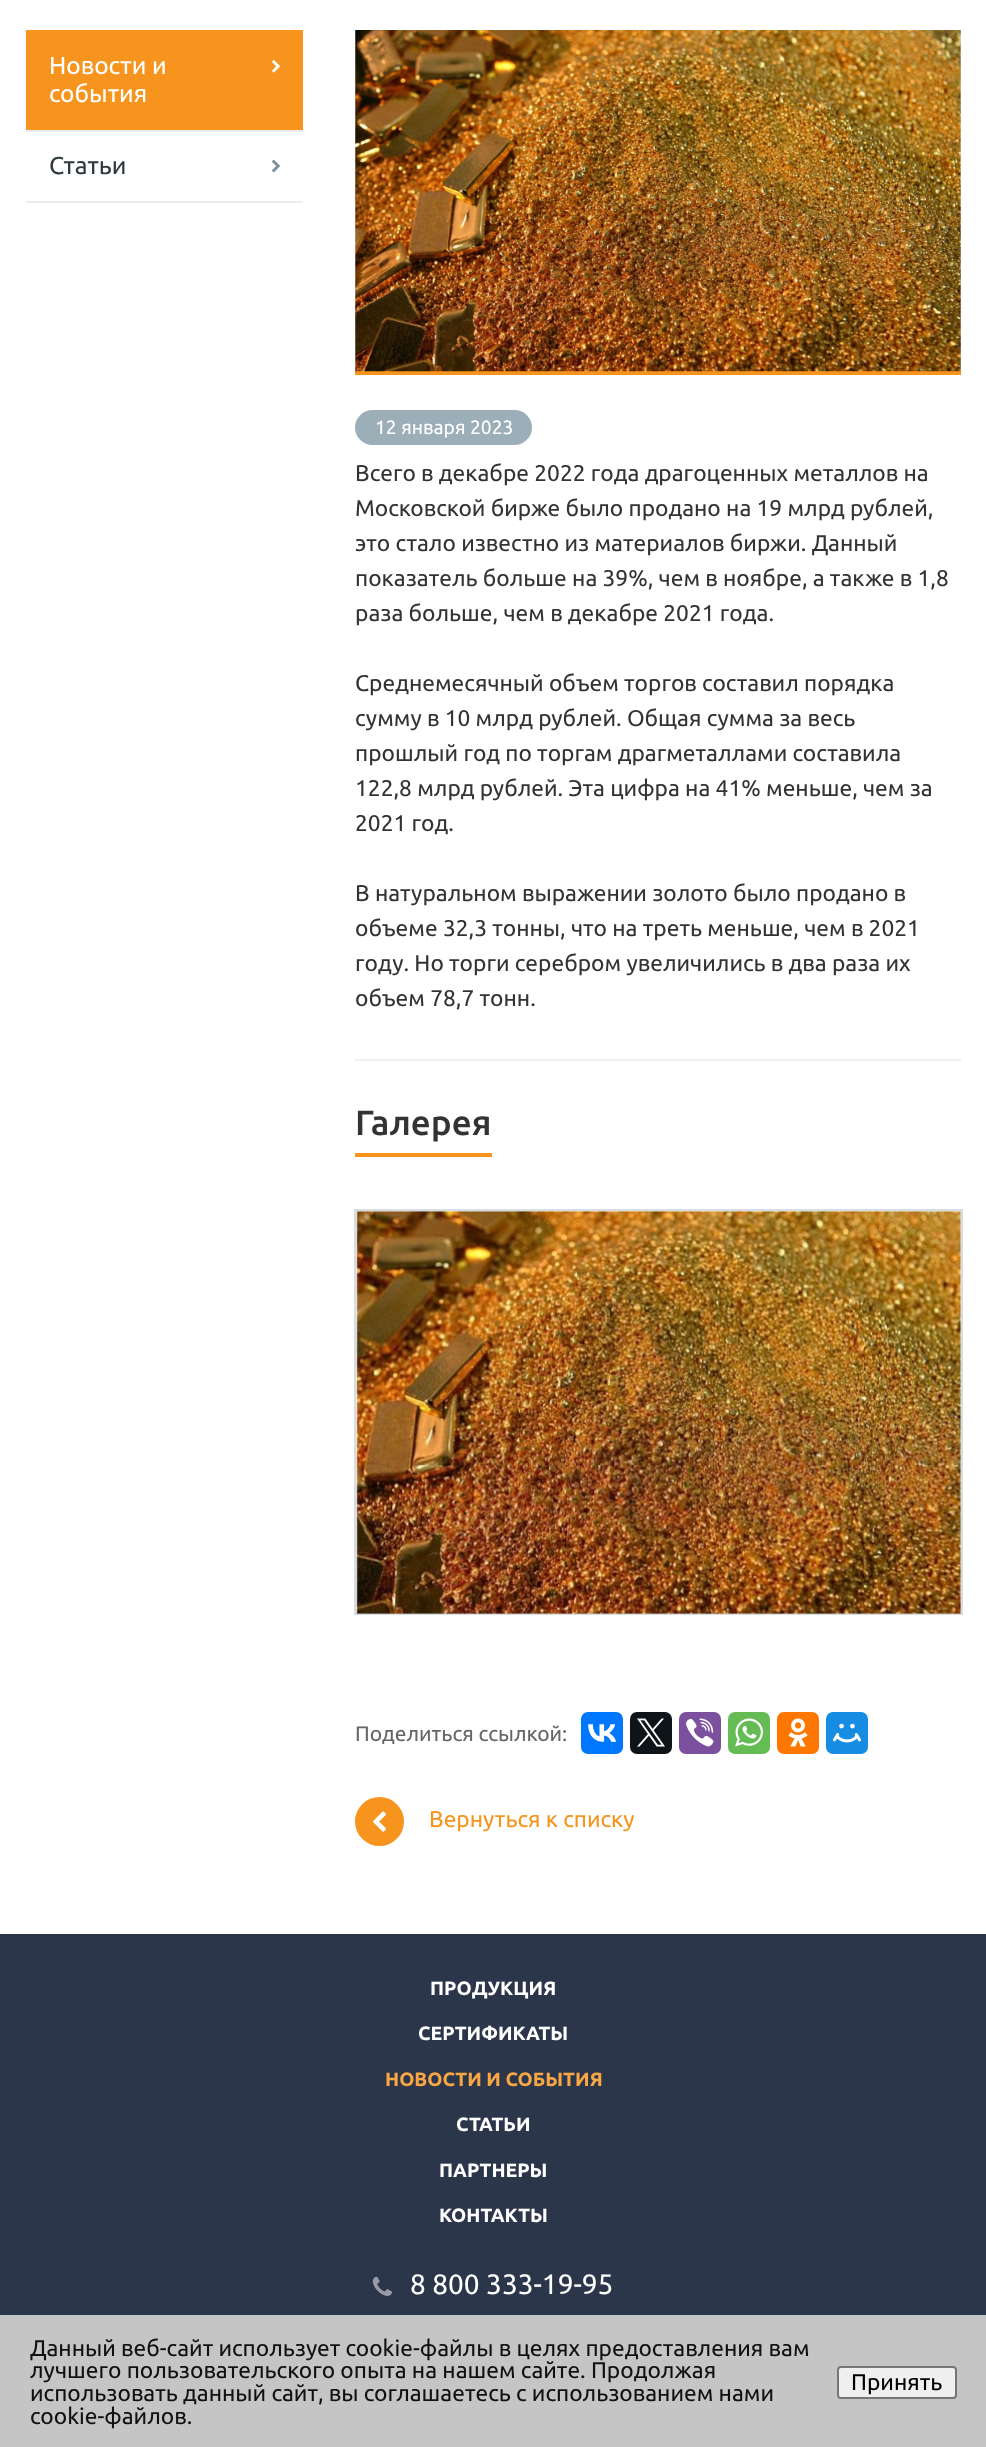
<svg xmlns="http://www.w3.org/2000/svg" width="986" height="2447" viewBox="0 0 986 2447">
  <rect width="100%" height="100%" fill="rgb(255,255,255)"/>
  <rect x="26" y="201" width="277" height="2" fill="rgb(235,238,241)"/>
  <rect x="26" y="30" width="277" height="100" fill="rgb(247,148,29)"/>
  <text x="49" y="74" font-family="Ubuntu" font-size="24.5" fill="rgb(255,255,255)">Новости и</text>
  <image x="272" y="60" width="8" height="13" href="pic1.png"/>
  <text x="49" y="102" font-family="Ubuntu" font-size="24.5" fill="rgb(255,255,255)">события</text>
  <rect x="26" y="130" width="277" height="2" fill="rgb(235,238,241)"/>
  <text x="49" y="174" font-family="Ubuntu" font-size="24.5" fill="rgb(47,56,61)">Статьи</text>
  <image x="272" y="159" width="8" height="14" href="pic2.png"/>
  <rect x="355" y="371" width="606" height="4" fill="rgb(247,148,29)"/>
  <image x="355" y="30" width="606" height="342" href="pic3.png"/>
  <rect x="355" y="410" width="177" height="35" rx="17.5" fill="rgb(156,174,184)"/>
  <text x="375" y="434" font-family="Ubuntu" font-size="19.25" fill="rgb(255,255,255)">12 января 2023</text>
  <g font-family="Ubuntu" font-size="22.75" fill="rgb(51,51,51)">
    <text>
      <tspan x="355" y="481">Всего в декабре 2022 года драгоценных металлов на</tspan>
      <tspan x="355" y="516">Московской бирже было продано на 19 млрд рублей,</tspan>
      <tspan x="355" y="551">это стало известно из материалов биржи. Данный</tspan>
      <tspan x="355" y="586">показатель больше на 39%, чем в ноябре, а также в 1,8</tspan>
      <tspan x="355" y="621">раза больше, чем в декабре 2021 года.</tspan>
    </text>
    <text>
      <tspan x="355" y="691">Среднемесячный объем торгов составил порядка</tspan>
      <tspan x="355" y="726">сумму в 10 млрд рублей. Общая сумма за весь</tspan>
      <tspan x="355" y="761">прошлый год по торгам драгметаллами составила</tspan>
      <tspan x="355" y="796">122,8 млрд рублей. Эта цифра на 41% меньше, чем за</tspan>
      <tspan x="355" y="831">2021 год.</tspan>
    </text>
    <text>
      <tspan x="355" y="901">В натуральном выражении золото было продано в</tspan>
      <tspan x="355" y="936">объеме 32,3 тонны, что на треть меньше, чем в 2021</tspan>
      <tspan x="355" y="971">году. Но торги серебром увеличились в два раза их</tspan>
      <tspan x="355" y="1006">объем 78,7 тонн.</tspan>
    </text>
  </g>
  <rect x="355" y="1059" width="606" height="2" fill="rgb(239,239,239)"/>
  <rect x="355" y="1153" width="137" height="4" fill="rgb(247,148,29)"/>
  <text x="355" y="1135" font-family="Ubuntu" font-size="35" font-weight="500" fill="rgb(51,51,51)">Галерея</text>
  <rect x="355" y="1210" width="607" height="404" fill="none" stroke="rgb(215,222,227)" stroke-width="2"/>
  <image x="356" y="1211" width="605" height="403" href="pic4.png"/>
  <text x="355" y="1741" font-family="Ubuntu" font-size="21" fill="rgb(102,102,102)">Поделиться ссылкой:</text>
  <rect x="581" y="1712" width="42" height="42" rx="7" fill="rgb(0,119,255)"/>
  <image x="588" y="1724" width="29" height="18" href="pic5.png"/>
  <rect x="630" y="1712" width="42" height="42" rx="7" fill="rgb(15,20,25)"/>
  <image x="637" y="1718" width="28" height="29" href="pic6.png"/>
  <rect x="679" y="1712" width="42" height="42" rx="7" fill="rgb(123,81,157)"/>
  <image x="686" y="1718" width="28" height="29" href="pic7.png"/>
  <rect x="728" y="1712" width="42" height="42" rx="7" fill="rgb(101,188,84)"/>
  <image x="735" y="1718" width="28" height="29" href="pic8.png"/>
  <rect x="777" y="1712" width="42" height="42" rx="7" fill="rgb(255,119,0)"/>
  <image x="788" y="1718" width="20" height="29" href="pic9.png"/>
  <rect x="826" y="1712" width="42" height="42" rx="7" fill="rgb(22,141,226)"/>
  <image x="833" y="1723" width="28" height="20" href="pic10.png"/>
  <circle cx="379.5" cy="1821.5" r="24.5" fill="rgb(247,148,29)"/>
  <image x="373" y="1811" width="14" height="21" href="pic11.png"/>
  <text x="429" y="1827" font-family="Ubuntu" font-size="22.75" fill="rgb(247,148,29)">Вернуться к списку</text>
  <rect x="0" y="1934" width="986" height="381" fill="rgb(44,54,74)"/>
  <g font-family="Ubuntu" font-size="19.25" font-weight="bold" fill="rgb(255,255,255)">
    <text x="430" y="1995">ПРОДУКЦИЯ</text>
    <text x="418" y="2040">СЕРТИФИКАТЫ</text>
  </g>
  <text x="385" y="2086" font-family="Ubuntu" font-size="19.25" font-weight="bold" fill="rgb(248,167,68)">НОВОСТИ И СОБЫТИЯ</text>
  <g font-family="Ubuntu" font-size="19.25" font-weight="bold" fill="rgb(255,255,255)">
    <text x="456" y="2131">СТАТЬИ</text>
    <text x="439" y="2177">ПАРТНЕРЫ</text>
    <text x="439" y="2222">КОНТАКТЫ</text>
  </g>
  <image x="372" y="2276" width="20" height="20" href="pic12.png"/>
  <text x="410" y="2294" font-family="Ubuntu" font-size="28" fill="rgb(255,255,255)">8 800 333-19-95</text>
  <rect x="0" y="2315" width="986" height="132" fill="rgb(197,197,197)"/>
  <g font-family="Ubuntu" font-size="22.75" fill="rgb(17,17,17)">
    <text>
      <tspan x="30" y="2356">Данный веб-сайт использует cookie-файлы в целях предоставления вам</tspan>
      <tspan x="30" y="2378">лучшего пользовательского опыта на нашем сайте. Продолжая</tspan>
      <tspan x="30" y="2401">использовать данный сайт, вы соглашаетесь с использованием нами</tspan>
      <tspan x="30" y="2424">cookie-файлов.</tspan>
    </text>
  </g>
  <rect x="838" y="2367" width="118" height="31" rx="3" fill="rgb(239,239,239)" stroke="rgb(118,118,118)" stroke-width="2"/>
  <text x="851" y="2390" font-family="Ubuntu" font-size="22.75" fill="rgb(0,0,0)">Принять</text>
</svg>
